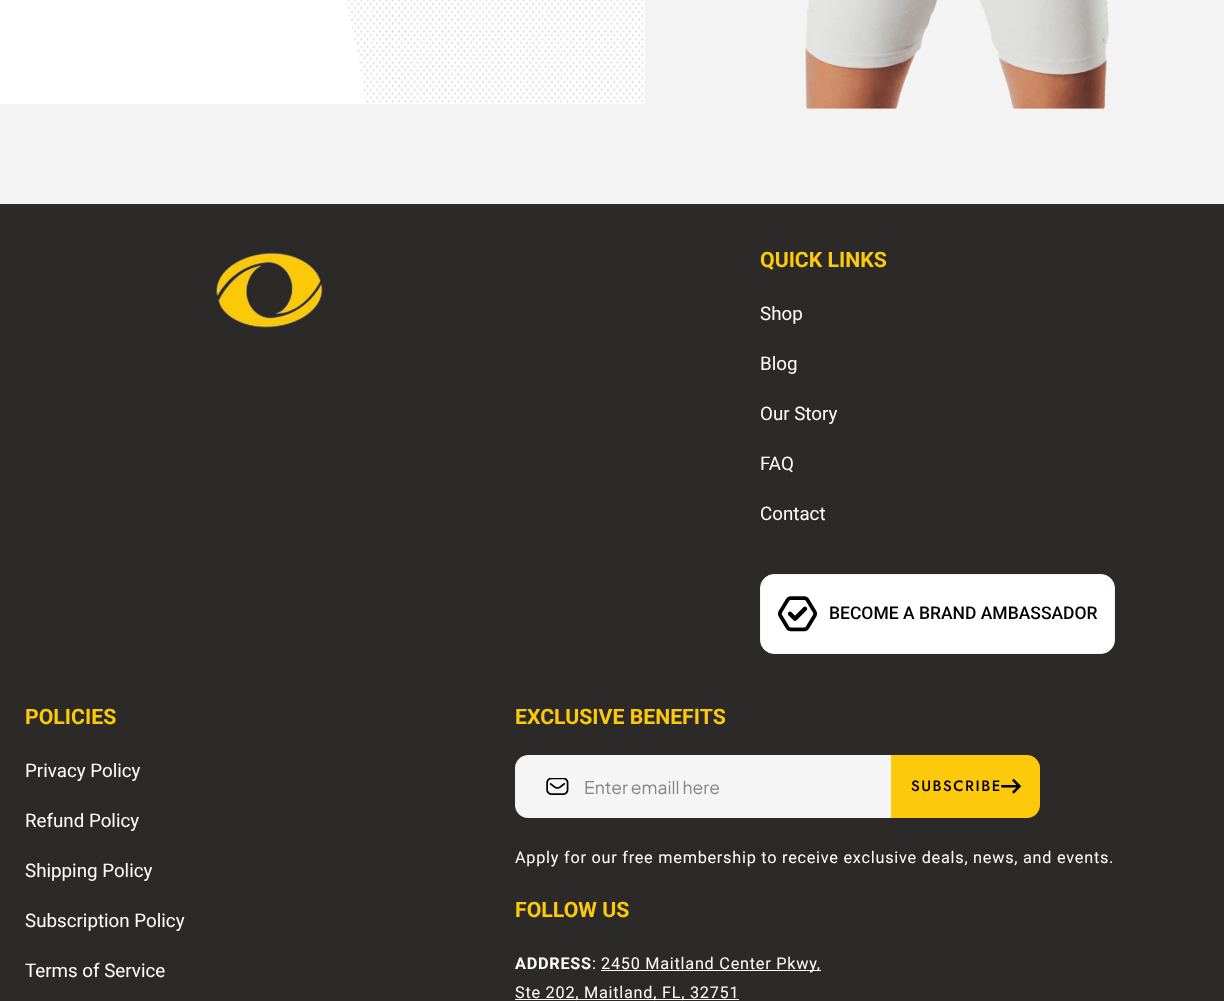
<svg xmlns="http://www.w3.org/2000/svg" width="1224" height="1001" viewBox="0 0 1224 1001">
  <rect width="100%" height="100%" fill="rgb(243,243,243)"/>
  <image x="0" y="0" width="645" height="104" href="pic1.png"/>
  <image x="805" y="0" width="304" height="109" href="pic2.png"/>
  <rect x="0" y="204" width="1224" height="797" fill="rgb(44,42,40)"/>
  <image x="216" y="252" width="107" height="76" href="pic3.png"/>
  <text x="760" y="267" font-family="Roboto" font-size="21.25" font-weight="bold" fill="rgb(252,201,11)">QUICK LINKS</text>
  <g font-family="Roboto" font-size="18.75" fill="rgb(255,255,255)">
    <text x="760" y="320">Shop</text>
    <text x="760" y="370">Blog</text>
    <text x="760" y="420">Our Story</text>
    <text x="760" y="470">FAQ</text>
    <text x="760" y="520">Contact</text>
  </g>
  <rect x="760.5" y="574.5" width="354" height="79" rx="13.5" fill="rgb(255,255,255)" stroke="rgb(243,243,243)"/>
  <image x="778" y="596" width="40" height="36" href="pic4.png"/>
  <text x="829" y="619" font-family="Roboto" font-size="17.5" font-weight="500" fill="rgb(0,0,0)">BECOME A BRAND AMBASSADOR</text>
  <text x="25" y="724" font-family="Roboto" font-size="21.25" font-weight="bold" fill="rgb(252,201,11)">POLICIES</text>
  <g font-family="Roboto" font-size="18.75" fill="rgb(255,255,255)">
    <text x="25" y="777">Privacy Policy</text>
    <text x="25" y="827">Refund Policy</text>
    <text x="25" y="877">Shipping Policy</text>
    <text x="25" y="927">Subscription Policy</text>
    <text x="25" y="977">Terms of Service</text>
  </g>
  <text x="515" y="724" font-family="Roboto" font-size="21.25" font-weight="bold" fill="rgb(252,201,11)">EXCLUSIVE BENEFITS</text>
  <path d="M528 755H891V818H528C521 818 515 812 515 805V768C515 761 521 755 528 755Z" fill="rgb(245,245,245)"/>
  <image x="546" y="778" width="23" height="17" href="pic5.png"/>
  <text x="584" y="794" font-family="Plus Jakarta Sans" font-size="17.5" fill="rgb(132,132,132)">Enter emaill here</text>
  <path d="M891 755H1027C1034 755 1040 761 1040 768V805C1040 812 1034 818 1027 818H891Z" fill="rgb(252,201,11)"/>
  <text x="911" y="791" font-family="Jost" font-size="15" font-weight="500" letter-spacing="1.5" fill="rgb(0,0,0)">SUBSCRIBE</text>
  <image x="1001" y="778" width="20" height="16" href="pic6.png"/>
  <text x="515" y="863" font-family="Roboto" font-size="16.25" letter-spacing="0.75" fill="rgb(255,255,255)">Apply for our free membership to receive exclusive deals, news, and events.</text>
  <text x="515" y="917" font-family="Roboto" font-size="21.25" font-weight="bold" fill="rgb(252,201,11)">FOLLOW US</text>
  <text x="515" y="969" font-family="Roboto" font-size="16.25" font-weight="bold" letter-spacing="0.75" fill="rgb(255,255,255)">ADDRESS</text>
  <text x="592" y="969" font-family="Roboto" font-size="16.25" letter-spacing="0.75" fill="rgb(255,255,255)">:</text>
  <rect x="601" y="970" width="220" height="1" fill="rgb(255,255,255)"/>
  <text x="601" y="969" font-family="Roboto" font-size="16.25" letter-spacing="0.75" fill="rgb(255,255,255)">2450 Maitland Center Pkwy,</text>
  <rect x="515" y="999" width="224" height="1" fill="rgb(255,255,255)"/>
  <text x="515" y="998" font-family="Roboto" font-size="16.25" letter-spacing="0.75" fill="rgb(255,255,255)">Ste 202, Maitland, FL, 32751</text>
</svg>
